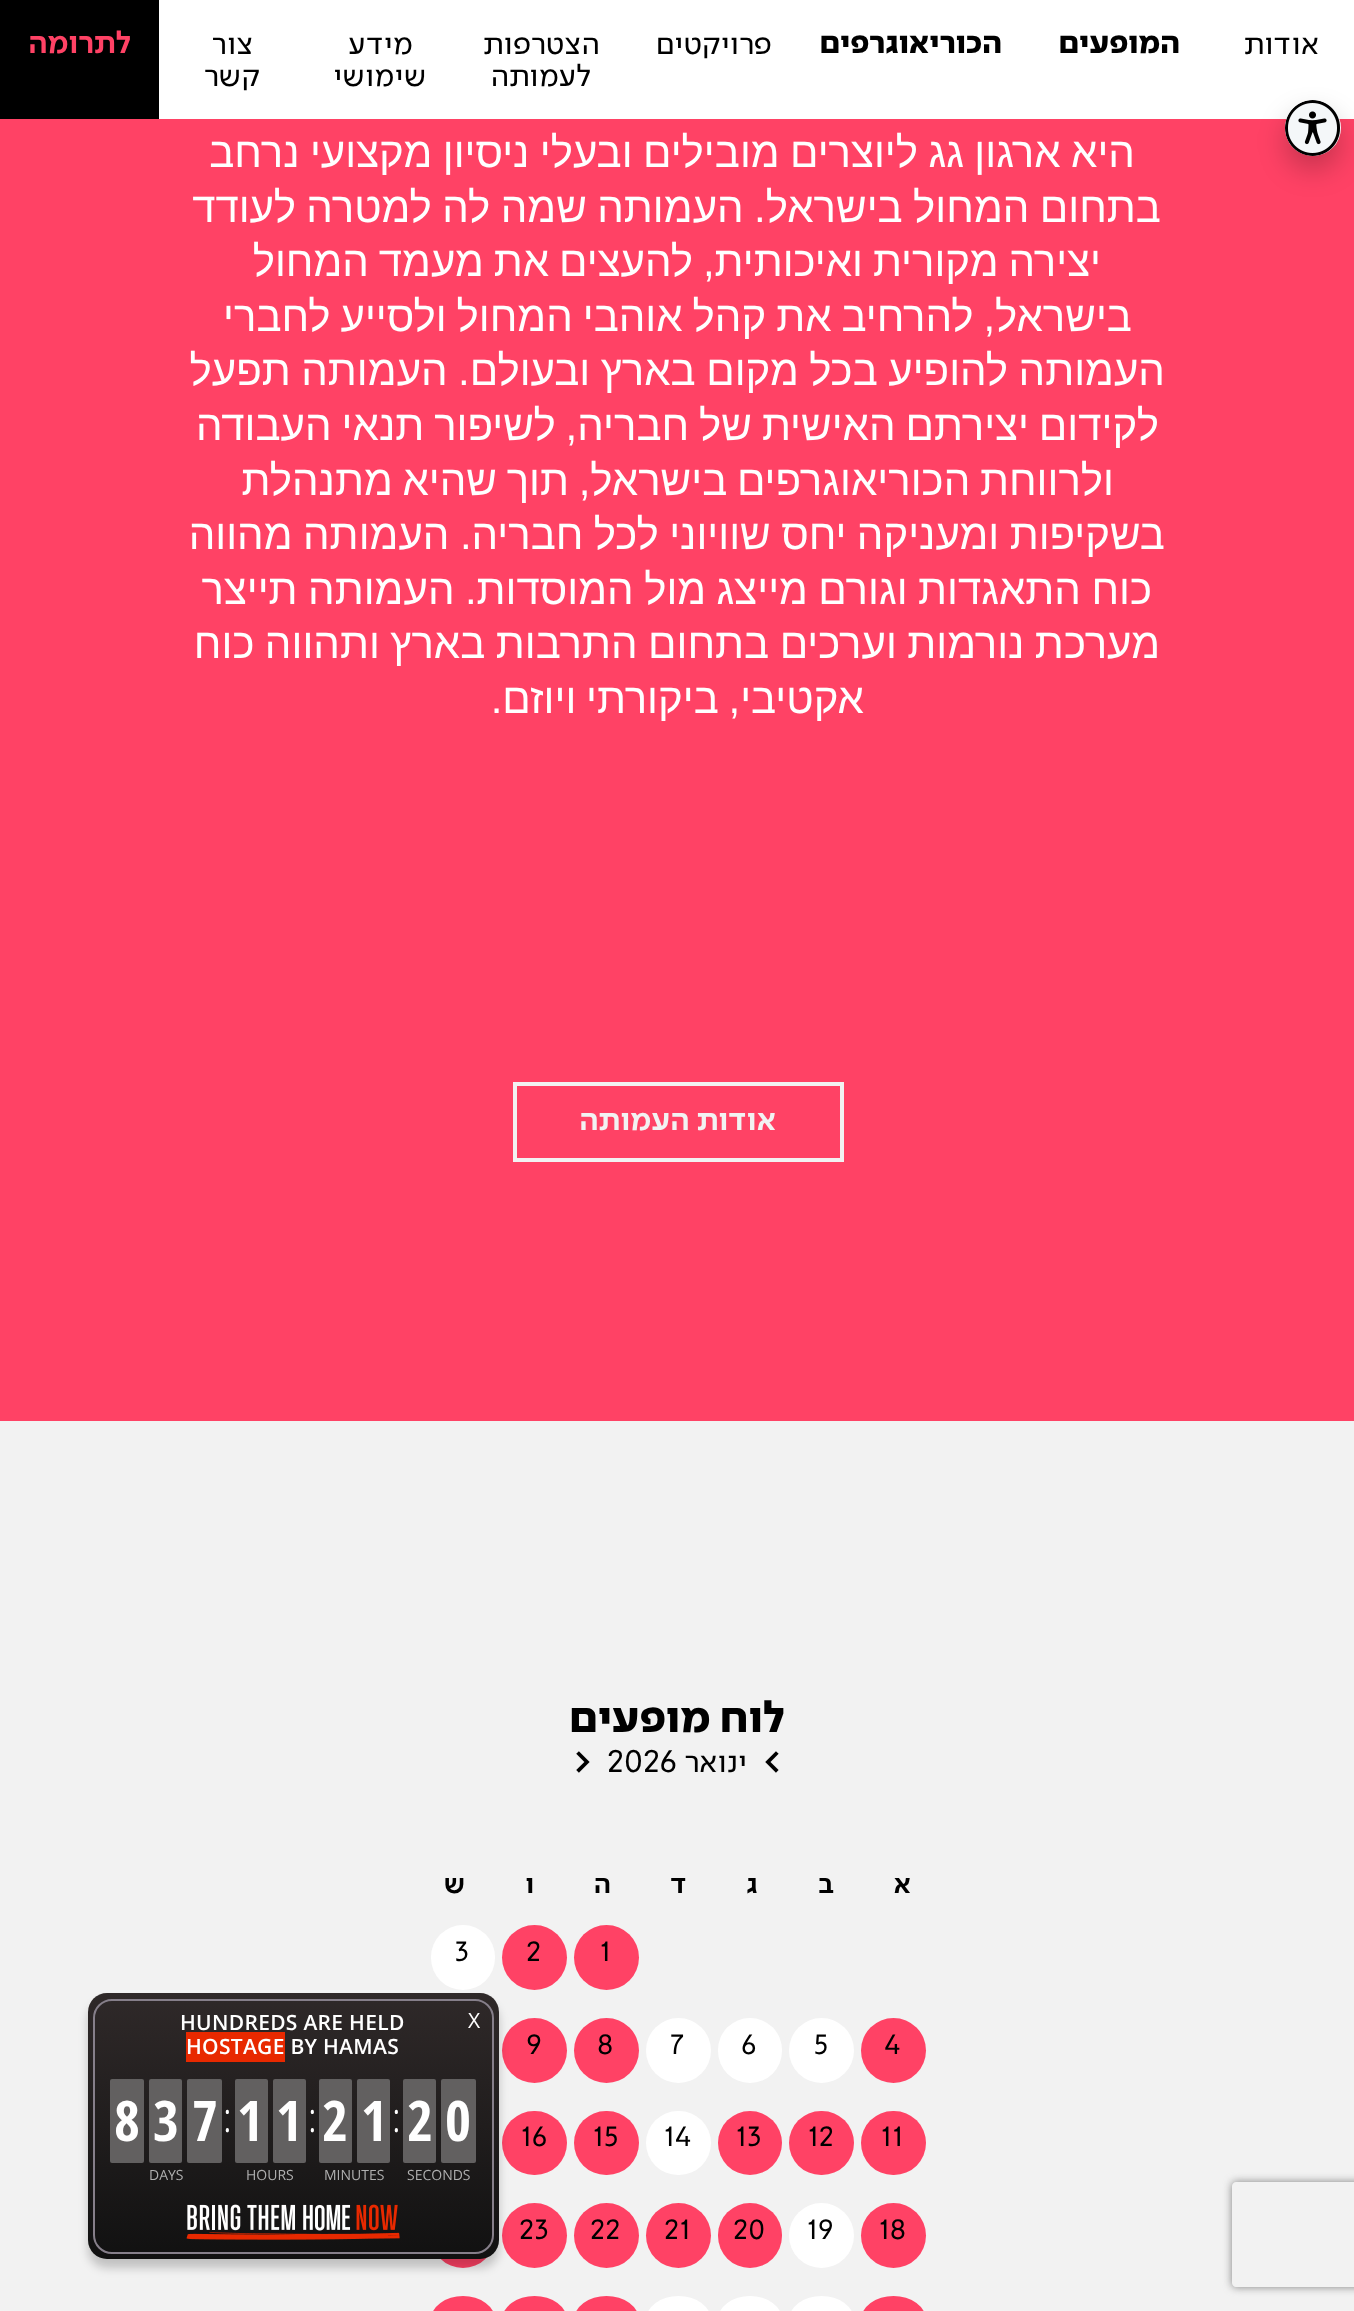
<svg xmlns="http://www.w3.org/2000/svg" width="1354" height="2311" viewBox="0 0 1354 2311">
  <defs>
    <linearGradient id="g1" gradientUnits="userSpaceOnUse" x1="293" y1="1993" x2="293" y2="2259"><stop offset="0" stop-color="rgb(47,41,41)"/><stop offset="1" stop-color="rgb(17,17,17)"/></linearGradient>
    <clipPath id="clip1"><path d="M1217 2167H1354V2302H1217ZM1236 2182H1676C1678 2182 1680 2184 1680 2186V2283C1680 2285 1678 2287 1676 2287H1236C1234 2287 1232 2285 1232 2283V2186C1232 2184 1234 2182 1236 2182Z" clip-rule="evenodd"/></clipPath>
  </defs>
  <rect width="100%" height="100%" fill="rgb(255,66,101)"/>
  <rect x="159" y="0" width="1195" height="119" fill="rgb(255,255,255)"/>
  <text x="1319" y="54" font-family="'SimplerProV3'" font-size="31.5" direction="rtl" fill="rgb(0,0,0)">אודות</text>
  <g font-family="'SimplerProV3'" font-size="31.5" font-weight="900" direction="rtl" fill="rgb(0,0,0)">
    <text x="1180" y="53">המופעים</text>
    <text x="1002" y="53">הכוריאוגרפים</text>
  </g>
  <g font-family="'SimplerProV3'" font-size="31.5" direction="rtl" fill="rgb(0,0,0)">
    <text x="772" y="54">פרויקטים</text>
    <text x="600" y="54">הצטרפות</text>
    <text x="591" y="86">לעמותה</text>
    <text x="413" y="54">מידע</text>
    <text x="426" y="86">שימושי</text>
    <text x="253" y="54">צור</text>
    <text x="260" y="86">קשר</text>
  </g>
  <rect x="0" y="0" width="159" height="119" fill="rgb(0,0,0)"/>
  <text x="131" y="53" font-family="'SimplerProV3'" font-size="31.5" font-weight="bold" direction="rtl" fill="rgb(255,66,101)">לתרומה</text>
  <g font-family="Liberation Sans" font-size="42" direction="rtl" fill="rgb(255,255,255)">
    <text x="1135" y="167" word-spacing="-1.25">היא ארגון גג ליוצרים מובילים ובעלי ניסיון מקצועי נרחב</text>
    <text x="1161" y="222" word-spacing="-1.25">בתחום המחול בישראל. העמותה שמה לה למטרה לעודד</text>
    <text x="1101" y="276" word-spacing="-1.75">יצירה מקורית ואיכותית, להעצים את מעמד המחול</text>
    <text x="1132" y="331" word-spacing="-1.75">בישראל, להרחיב את קהל אוהבי המחול ולסייע לחברי</text>
    <text x="1165" y="385" word-spacing="-1.25">העמותה להופיע בכל מקום בארץ ובעולם. העמותה תפעל</text>
    <text x="1159" y="440" word-spacing="-1.75">לקידום יצירתם האישית של חבריה, לשיפור תנאי העבודה</text>
    <text x="1114" y="495" word-spacing="-2">ולרווחת הכוריאוגרפים בישראל, תוך שהיא מתנהלת</text>
    <text x="1165" y="549" word-spacing="-1.25">בשקיפות ומעניקה יחס שוויוני לכל חבריה. העמותה מהווה</text>
    <text x="1152" y="604" word-spacing="-1.25">כוח התאגדות וגורם מייצג מול המוסדות. העמותה תייצר</text>
    <text x="1160" y="658" word-spacing="-1.25">מערכת נורמות וערכים בתחום התרבות בארץ ותהווה כוח</text>
    <text x="864" y="713" word-spacing="-2">אקטיבי, ביקורתי ויוזם.</text>
  </g>
  <rect x="0" y="1421" width="1354" height="890" fill="rgb(242,242,242)"/>
  <circle cx="534.5" cy="1957.5" r="32.5" fill="rgb(255,66,101)"/>
  <rect x="431" y="1925" width="64" height="65" rx="32" fill="rgb(255,255,255)"/>
  <circle cx="534.5" cy="2050.5" r="32.5" fill="rgb(255,66,101)"/>
  <rect x="502" y="2111" width="65" height="64" rx="32" fill="rgb(255,66,101)"/>
  <circle cx="534.5" cy="2235.5" r="32.5" fill="rgb(255,66,101)"/>
  <rect x="431" y="2203" width="64" height="65" rx="32" fill="rgb(255,66,101)"/>
  <rect x="88" y="2002" width="411" height="266" rx="19" fill="rgba(0,0,0,0.2)" filter="blur(5px)"/>
  <rect x="88" y="1993" width="411" height="266" rx="19" fill="url(#g1)"/>
  <rect x="94" y="2000" width="399" height="253" rx="18" fill="none" stroke="rgb(134,127,138)" stroke-width="2"/>
  <text x="468" y="2028" font-family="Open Sans" font-size="21" fill="rgb(255,255,255)">X</text>
  <text x="180" y="2030" font-family="Open Sans" font-size="21" font-weight="600" letter-spacing="0.3" fill="rgb(255,255,255)">HUNDREDS ARE HELD</text>
  <rect x="186" y="2032" width="99" height="30" fill="rgb(232,41,0)"/>
  <text x="186" y="2054" font-family="Open Sans" font-size="21" font-weight="600" letter-spacing="0.3" fill="rgb(255,255,255)">HOSTAGE BY HAMAS</text>
  <rect x="441" y="2079" width="35" height="84" rx="2" fill="rgb(98,96,96)"/>
  <text x="445" y="2141" font-family="Open Sans Condensed" font-size="56" font-weight="bold" fill="rgb(255,255,255)">0</text>
  <rect x="403" y="2079" width="33" height="84" rx="2" fill="rgb(98,96,96)"/>
  <text x="407" y="2141" font-family="Open Sans Condensed" font-size="56" font-weight="bold" fill="rgb(255,255,255)">2</text>
  <text x="407" y="2180" font-family="Open Sans" font-size="14" fill="rgb(175,175,175)">SECONDS</text>
  <text x="392" y="2132" font-family="Open Sans Condensed" font-size="42" font-weight="300" fill="rgb(255,255,255)">:</text>
  <rect x="357" y="2079" width="33" height="84" rx="2" fill="rgb(98,96,96)"/>
  <text x="361" y="2141" font-family="Open Sans Condensed" font-size="56" font-weight="bold" fill="rgb(255,255,255)">1</text>
  <rect x="319" y="2079" width="33" height="84" rx="2" fill="rgb(98,96,96)"/>
  <text x="322" y="2141" font-family="Open Sans Condensed" font-size="56" font-weight="bold" fill="rgb(255,255,255)">2</text>
  <text x="324" y="2180" font-family="Open Sans" font-size="14" fill="rgb(175,175,175)">MINUTES</text>
  <text x="308" y="2132" font-family="Open Sans Condensed" font-size="42" font-weight="300" fill="rgb(255,255,255)">:</text>
  <rect x="273" y="2079" width="33" height="84" rx="2" fill="rgb(98,96,96)"/>
  <text x="276" y="2141" font-family="Open Sans Condensed" font-size="56" font-weight="bold" fill="rgb(255,255,255)">1</text>
  <rect x="235" y="2079" width="33" height="84" rx="2" fill="rgb(98,96,96)"/>
  <text x="237" y="2141" font-family="Open Sans Condensed" font-size="56" font-weight="bold" fill="rgb(255,255,255)">1</text>
  <text x="246" y="2180" font-family="Open Sans" font-size="14" fill="rgb(175,175,175)">HOURS</text>
  <text x="223" y="2132" font-family="Open Sans Condensed" font-size="42" font-weight="300" fill="rgb(255,255,255)">:</text>
  <rect x="187" y="2079" width="35" height="84" rx="2" fill="rgb(98,96,96)"/>
  <text x="192" y="2141" font-family="Open Sans Condensed" font-size="56" font-weight="bold" fill="rgb(255,255,255)">7</text>
  <rect x="149" y="2079" width="33" height="84" rx="2" fill="rgb(98,96,96)"/>
  <text x="153" y="2141" font-family="Open Sans Condensed" font-size="56" font-weight="bold" fill="rgb(255,255,255)">3</text>
  <rect x="110" y="2079" width="34" height="84" rx="2" fill="rgb(98,96,96)"/>
  <text x="114" y="2141" font-family="Open Sans Condensed" font-size="56" font-weight="bold" fill="rgb(255,255,255)">8</text>
  <text x="149" y="2180" font-family="Open Sans" font-size="14" fill="rgb(175,175,175)">DAYS</text>
  <image x="186" y="2204" width="214" height="36" href="pic1.png"/>
  <rect x="515" y="1084" width="327" height="76" fill="none" stroke="rgb(242,242,242)" stroke-width="4"/>
  <text x="776" y="1130" font-family="'SimplerProV3'" font-size="31.5" font-weight="bold" direction="rtl" fill="rgb(242,242,242)">אודות העמותה</text>
  <text x="785" y="1732" font-family="'SimplerProV3'" font-size="43.75" font-weight="900" direction="rtl" fill="rgb(0,0,0)">לוח מופעים</text>
  <text x="763" y="1772" font-family="'SimplerProV3'" font-size="35" font-weight="bold" fill="rgb(0,0,0)">&lt;</text>
  <text x="747" y="1772" font-family="'SimplerProV3'" font-size="31.5" direction="rtl" fill="rgb(0,0,0)">ינואר</text>
  <text x="607" y="1772" font-family="'SimplerProV3'" font-size="31.5" fill="rgb(0,0,0)">2026</text>
  <text x="574" y="1772" font-family="'SimplerProV3'" font-size="35" font-weight="bold" fill="rgb(0,0,0)">&gt;</text>
  <g font-family="'SimplerProV3'" font-size="28" font-weight="bold" direction="rtl" fill="rgb(0,0,0)">
    <text x="911" y="1893">א</text>
    <text x="834" y="1893">ב</text>
    <text x="758" y="1893">ג</text>
    <text x="686" y="1893">ד</text>
    <text x="611" y="1893">ה</text>
    <text x="534" y="1893">ו</text>
    <text x="465" y="1893">ש</text>
  </g>
  <circle cx="606.5" cy="1957.5" r="32.5" fill="rgb(255,66,101)"/>
  <g font-family="'SimplerProV3'" font-size="28" fill="rgb(0,0,0)">
    <text x="600" y="1961">1</text>
    <text x="526" y="1961">2</text>
    <text x="455" y="1961">3</text>
  </g>
  <circle cx="893.5" cy="2050.5" r="32.5" fill="rgb(255,66,101)"/>
  <text x="884" y="2054" font-family="'SimplerProV3'" font-size="28" fill="rgb(0,0,0)">4</text>
  <circle cx="821.5" cy="2050.5" r="32.5" fill="rgb(255,255,255)"/>
  <text x="814" y="2054" font-family="'SimplerProV3'" font-size="28" fill="rgb(0,0,0)">5</text>
  <rect x="718" y="2018" width="64" height="65" rx="32" fill="rgb(255,255,255)"/>
  <text x="741" y="2054" font-family="'SimplerProV3'" font-size="28" fill="rgb(0,0,0)">6</text>
  <circle cx="678.5" cy="2050.5" r="32.5" fill="rgb(255,255,255)"/>
  <text x="670" y="2054" font-family="'SimplerProV3'" font-size="28" fill="rgb(0,0,0)">7</text>
  <circle cx="606.5" cy="2050.5" r="32.5" fill="rgb(255,66,101)"/>
  <g font-family="'SimplerProV3'" font-size="28" fill="rgb(0,0,0)">
    <text x="597" y="2054">8</text>
    <text x="526" y="2054">9</text>
  </g>
  <rect x="861" y="2111" width="65" height="64" rx="32" fill="rgb(255,66,101)"/>
  <text x="881" y="2146" font-family="'SimplerProV3'" font-size="28" fill="rgb(0,0,0)">11</text>
  <rect x="789" y="2111" width="65" height="64" rx="32" fill="rgb(255,66,101)"/>
  <text x="808" y="2146" font-family="'SimplerProV3'" font-size="28" fill="rgb(0,0,0)">12</text>
  <circle cx="750" cy="2143" r="32" fill="rgb(255,66,101)"/>
  <text x="736" y="2146" font-family="'SimplerProV3'" font-size="28" fill="rgb(0,0,0)">13</text>
  <rect x="646" y="2111" width="65" height="64" rx="32" fill="rgb(255,255,255)"/>
  <text x="664" y="2146" font-family="'SimplerProV3'" font-size="28" fill="rgb(0,0,0)">14</text>
  <rect x="574" y="2111" width="65" height="64" rx="32" fill="rgb(255,66,101)"/>
  <g font-family="'SimplerProV3'" font-size="28" fill="rgb(0,0,0)">
    <text x="593" y="2146">15</text>
    <text x="521" y="2146">16</text>
  </g>
  <circle cx="893.5" cy="2235.5" r="32.5" fill="rgb(255,66,101)"/>
  <text x="879" y="2239" font-family="'SimplerProV3'" font-size="28" fill="rgb(0,0,0)">18</text>
  <circle cx="821.5" cy="2235.5" r="32.5" fill="rgb(255,255,255)"/>
  <text x="807" y="2239" font-family="'SimplerProV3'" font-size="28" fill="rgb(0,0,0)">19</text>
  <rect x="718" y="2203" width="64" height="65" rx="32" fill="rgb(255,66,101)"/>
  <text x="733" y="2239" font-family="'SimplerProV3'" font-size="28" fill="rgb(0,0,0)">20</text>
  <circle cx="678.5" cy="2235.5" r="32.5" fill="rgb(255,66,101)"/>
  <text x="664" y="2239" font-family="'SimplerProV3'" font-size="28" fill="rgb(0,0,0)">21</text>
  <circle cx="606.5" cy="2235.5" r="32.5" fill="rgb(255,66,101)"/>
  <g font-family="'SimplerProV3'" font-size="28" fill="rgb(0,0,0)">
    <text x="590" y="2239">22</text>
    <text x="519" y="2239">23</text>
  </g>
  <rect x="861" y="2296" width="65" height="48" rx="32.5" fill="rgb(255,66,101)"/>
  <rect x="789" y="2296" width="65" height="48" rx="32.5" fill="rgb(255,255,255)"/>
  <rect x="718" y="2296" width="64" height="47" rx="32" fill="rgb(255,255,255)"/>
  <rect x="646" y="2296" width="65" height="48" rx="32.5" fill="rgb(255,255,255)"/>
  <rect x="574" y="2296" width="65" height="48" rx="32.5" fill="rgb(255,66,101)"/>
  <rect x="502" y="2296" width="65" height="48" rx="32.5" fill="rgb(255,66,101)"/>
  <rect x="431" y="2296" width="64" height="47" rx="32" fill="rgb(255,66,101)"/>
  <rect x="1285" y="114" width="56" height="56" rx="28" fill="rgba(0,0,0,0.22)" filter="blur(14px)"/>
  <circle cx="1313" cy="128" r="28" fill="rgb(244,247,249)"/>
  <image x="1285" y="100" width="55" height="56" href="pic2.png"/>
  <g clip-path="url(#clip1)">
    <rect x="1232" y="2182" width="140" height="105" rx="4" fill="rgb(128,128,128)" filter="blur(4.5px)"/>
  </g>
</svg>
